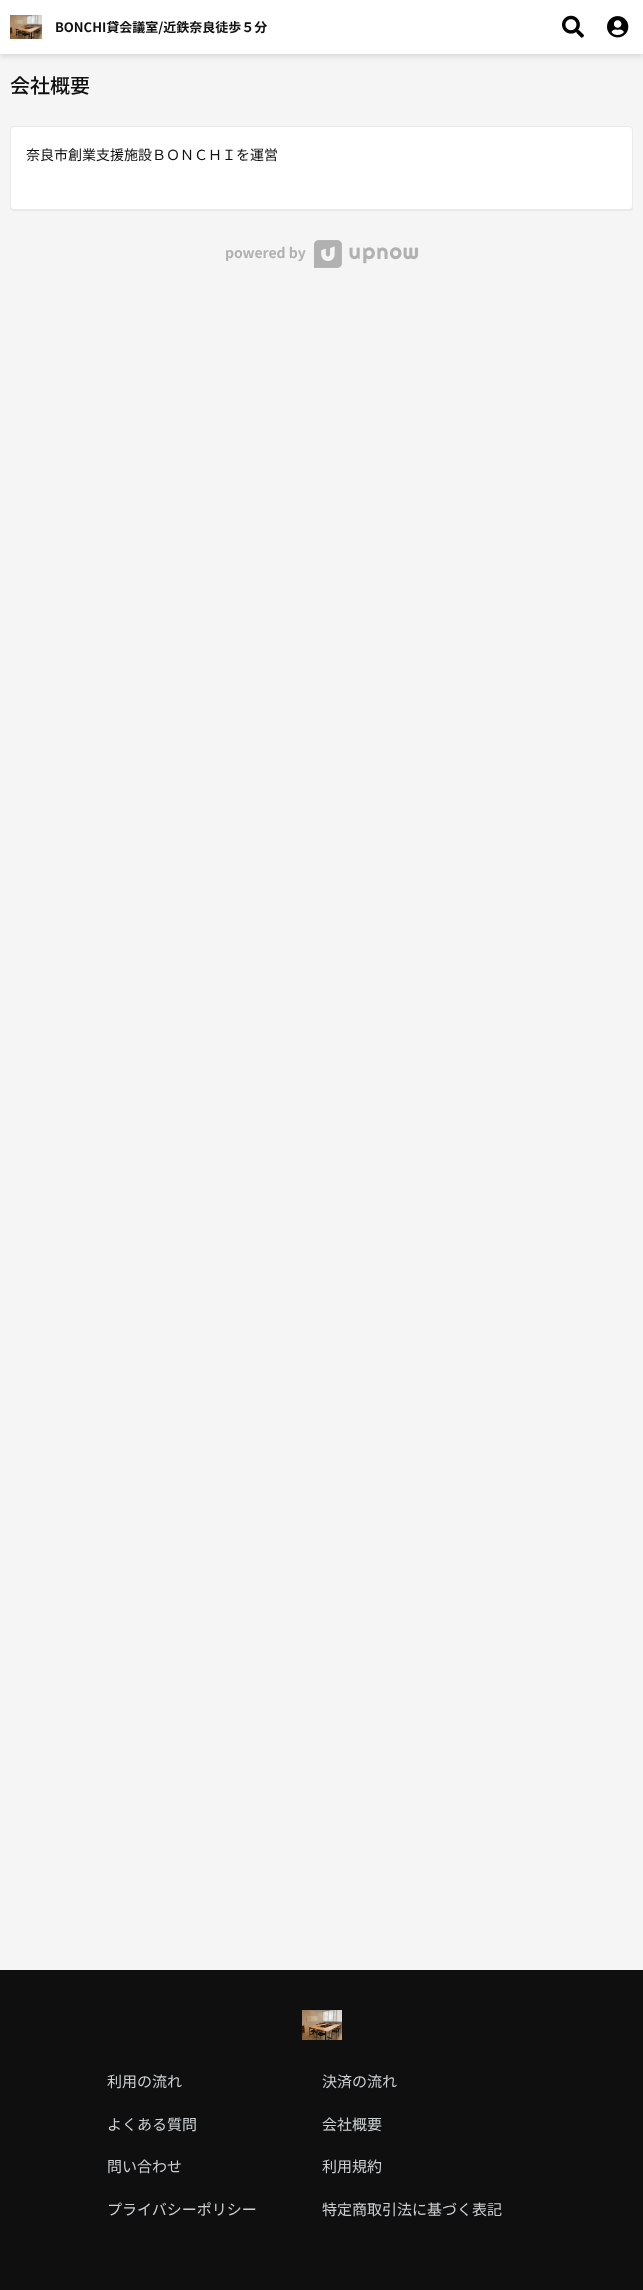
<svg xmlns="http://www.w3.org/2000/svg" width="643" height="2290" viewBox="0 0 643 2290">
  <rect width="100%" height="100%" fill="rgb(245,245,245)"/>
  <rect x="0" y="3" width="643" height="54" fill="rgba(0,0,0,0.1)" filter="blur(2.5px)"/>
  <rect x="0" y="0" width="643" height="54" fill="rgb(255,255,255)"/>
  <image x="10" y="15" width="32" height="24" href="pic1.png"/>
  <text x="55" y="32" font-family="Noto Sans JP" font-size="13" font-weight="bold" fill="rgb(15,15,15)">BONCHI貸会議室/近鉄奈良徒歩５分</text>
  <image x="562" y="15" width="22" height="23" href="pic2.png"/>
  <image x="607" y="16" width="22" height="22" href="pic3.png"/>
  <text x="10" y="93" font-family="Noto Sans JP" font-size="20" font-weight="500" fill="rgb(15,15,15)">会社概要</text>
  <rect x="10" y="127" width="623" height="84" rx="4" fill="rgba(0,0,0,0.05)" filter="blur(0.5px)"/>
  <rect x="10.5" y="126.5" width="622" height="83" rx="3.5" fill="rgb(255,255,255)" stroke="rgb(235,235,235)"/>
  <text x="26" y="160" font-family="Noto Sans JP" font-size="14" fill="rgb(15,15,15)">奈良市創業支援施設ＢＯＮＣＨＩを運営</text>
  <text x="225" y="258" font-family="Noto Sans JP" font-size="14" font-weight="bold" fill="rgb(177,177,177)">powered by</text>
  <image x="314" y="240" width="104" height="28" href="pic4.png"/>
  <rect x="0" y="1970" width="643" height="320" fill="rgb(15,15,15)"/>
  <image x="302" y="2010" width="40" height="30" href="pic5.png"/>
  <g font-family="Noto Sans JP" font-size="15" fill="rgb(203,208,211)">
    <text x="107" y="2087">利用の流れ</text>
    <text x="322" y="2087">決済の流れ</text>
    <text x="107" y="2130">よくある質問</text>
    <text x="322" y="2130">会社概要</text>
    <text x="107" y="2172">問い合わせ</text>
    <text x="322" y="2172">利用規約</text>
    <text x="107" y="2215">プライバシーポリシー</text>
    <text x="322" y="2215">特定商取引法に基づく表記</text>
  </g>
</svg>
